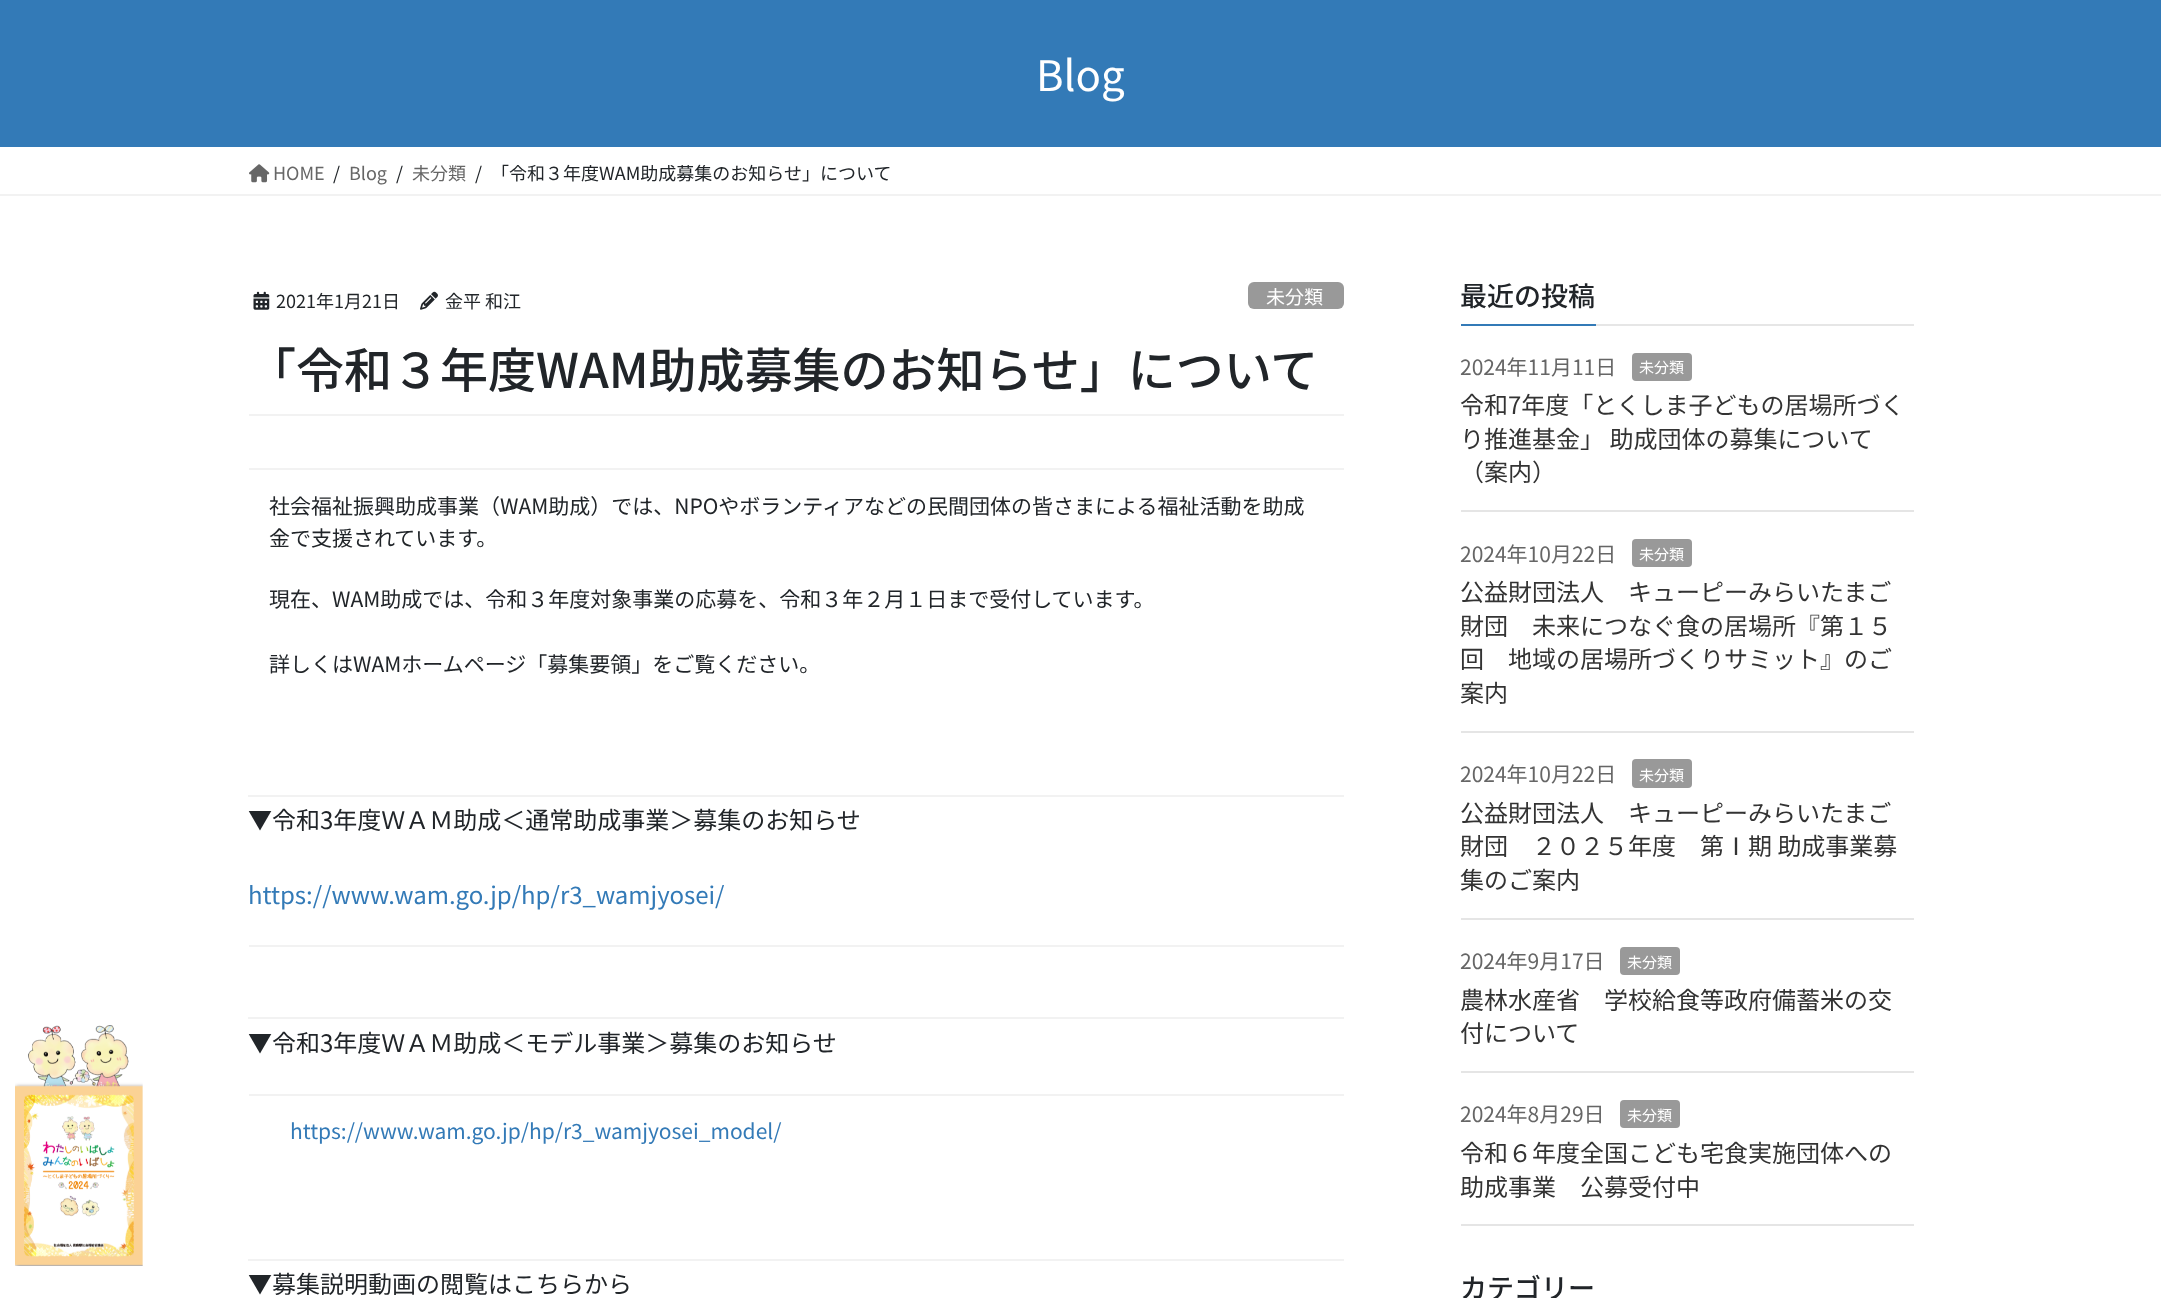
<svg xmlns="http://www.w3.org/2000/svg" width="2161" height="1298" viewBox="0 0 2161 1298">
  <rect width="100%" height="100%" fill="rgb(255,255,255)"/>
  <rect x="0" y="0" width="2161" height="147" fill="rgb(51,122,183)"/>
  <text x="1036" y="91" font-family="Noto Sans JP" font-size="42" fill="rgb(255,255,255)">Blog</text>
  <rect x="0" y="194" width="2161" height="2" fill="rgb(242,242,242)"/>
  <image x="249" y="164" width="21" height="19" href="pic1.png"/>
  <text x="273" y="180" font-family="Noto Sans JP" font-size="18" fill="rgb(102,102,102)">HOME</text>
  <text x="333" y="180" font-family="Noto Sans JP" font-size="18" fill="rgb(33,37,41)">/</text>
  <text x="349" y="180" font-family="Noto Sans JP" font-size="18" fill="rgb(102,102,102)">Blog</text>
  <text x="396" y="180" font-family="Noto Sans JP" font-size="18" fill="rgb(33,37,41)">/</text>
  <text x="412" y="180" font-family="Noto Sans JP" font-size="18" fill="rgb(102,102,102)">未分類</text>
  <g font-family="Noto Sans JP" font-size="18" fill="rgb(33,37,41)">
    <text x="475" y="180">/</text>
    <text x="491" y="180">「令和３年度WAM助成募集のお知らせ」について</text>
  </g>
  <image x="15" y="1025" width="128" height="241" href="pic2.png"/>
  <rect x="249" y="414" width="1095" height="2" fill="rgb(242,242,242)"/>
  <image x="253" y="291" width="17" height="19" href="pic3.png"/>
  <text x="276" y="308" font-family="Noto Sans JP" font-size="18" fill="rgb(33,37,41)">2021年1月21日</text>
  <image x="420" y="291" width="18" height="19" href="pic4.png"/>
  <text x="445" y="308" font-family="Noto Sans JP" font-size="18" fill="rgb(33,37,41)">金平 和江</text>
  <rect x="1248" y="282" width="96" height="27" rx="6" fill="rgb(153,153,153)"/>
  <text x="1266" y="304" font-family="Noto Sans JP" font-size="19" fill="rgb(255,255,255)">未分類</text>
  <text x="248" y="388" font-family="Noto Sans JP" font-size="48" font-weight="500" fill="rgb(33,37,41)">「令和３年度WAM助成募集のお知らせ」について</text>
  <rect x="249" y="468" width="1095" height="2" fill="rgb(242,242,242)"/>
  <rect x="248" y="795" width="1096" height="2" fill="rgb(242,242,242)"/>
  <g font-family="Noto Sans JP" font-size="21" fill="rgb(33,37,41)">
    <text>
      <tspan x="269" y="514">社会福祉振興助成事業（WAM助成）では、NPOやボランティアなどの民間団体の皆さまによる福祉活動を助成</tspan>
      <tspan x="269" y="546">金で支援されています。</tspan>
    </text>
    <text x="269" y="607">現在、WAM助成では、令和３年度対象事業の応募を、令和３年２月１日まで受付しています。</text>
    <text x="269" y="672">詳しくはWAMホームページ「募集要領」をご覧ください。</text>
  </g>
  <text x="248" y="829" font-family="Noto Sans JP" font-size="24" fill="rgb(33,37,41)">▼令和3年度ＷＡＭ助成＜通常助成事業＞募集のお知らせ</text>
  <text x="248" y="904" font-family="Noto Sans JP" font-size="24" fill="rgb(51,122,183)">https://www.wam.go.jp/hp/r3_wamjyosei/</text>
  <rect x="249" y="945" width="1095" height="2" fill="rgb(242,242,242)"/>
  <rect x="248" y="1017" width="1096" height="2" fill="rgb(242,242,242)"/>
  <text x="248" y="1052" font-family="Noto Sans JP" font-size="24" fill="rgb(33,37,41)">▼令和3年度ＷＡＭ助成＜モデル事業＞募集のお知らせ</text>
  <rect x="249" y="1094" width="1095" height="2" fill="rgb(242,242,242)"/>
  <rect x="248" y="1259" width="1096" height="2" fill="rgb(242,242,242)"/>
  <text x="290" y="1139" font-family="Noto Sans JP" font-size="21" fill="rgb(51,122,183)">https://www.wam.go.jp/hp/r3_wamjyosei_model/</text>
  <text x="248" y="1293" font-family="Noto Sans JP" font-size="24" fill="rgb(33,37,41)">▼募集説明動画の閲覧はこちらから</text>
  <rect x="1596" y="324" width="318" height="2" fill="rgb(230,230,230)"/>
  <text x="1460" y="306" font-family="Noto Sans JP" font-size="27" font-weight="500" fill="rgb(33,37,41)">最近の投稿</text>
  <rect x="1461" y="324" width="135" height="2" fill="rgb(51,122,183)"/>
  <rect x="1461" y="510" width="453" height="2" fill="rgb(229,229,229)"/>
  <text x="1460" y="375" font-family="Noto Sans JP" font-size="21" fill="rgb(102,102,102)">2024年11月11日</text>
  <rect x="1632" y="353" width="60" height="28" rx="4" fill="rgb(153,153,153)"/>
  <text x="1639" y="373" font-family="Noto Sans JP" font-size="15" fill="rgb(255,255,255)">未分類</text>
  <g font-family="Noto Sans JP" font-size="24" fill="rgb(51,51,51)">
    <text>
      <tspan x="1460" y="414">令和7年度「とくしま子どもの居場所づく</tspan>
      <tspan x="1460" y="448">り推進基金」 助成団体の募集について</tspan>
      <tspan x="1460" y="481">（案内）</tspan>
    </text>
  </g>
  <rect x="1461" y="731" width="453" height="2" fill="rgb(229,229,229)"/>
  <text x="1460" y="562" font-family="Noto Sans JP" font-size="21" fill="rgb(102,102,102)">2024年10月22日</text>
  <rect x="1632" y="539" width="60" height="28" rx="4" fill="rgb(153,153,153)"/>
  <text x="1639" y="560" font-family="Noto Sans JP" font-size="15" fill="rgb(255,255,255)">未分類</text>
  <g font-family="Noto Sans JP" font-size="24" fill="rgb(51,51,51)">
    <text>
      <tspan x="1460" y="601">公益財団法人　キューピーみらいたまご</tspan>
      <tspan x="1460" y="635">財団　未来につなぐ食の居場所『第１５</tspan>
      <tspan x="1460" y="668">回　地域の居場所づくりサミット』のご</tspan>
      <tspan x="1460" y="702">案内</tspan>
    </text>
  </g>
  <rect x="1461" y="918" width="453" height="2" fill="rgb(229,229,229)"/>
  <text x="1460" y="782" font-family="Noto Sans JP" font-size="21" fill="rgb(102,102,102)">2024年10月22日</text>
  <rect x="1632" y="759" width="60" height="29" rx="4" fill="rgb(153,153,153)"/>
  <text x="1639" y="781" font-family="Noto Sans JP" font-size="15" fill="rgb(255,255,255)">未分類</text>
  <g font-family="Noto Sans JP" font-size="24" fill="rgb(51,51,51)">
    <text>
      <tspan x="1460" y="822">公益財団法人　キューピーみらいたまご</tspan>
      <tspan x="1460" y="855">財団　２０２５年度　第Ⅰ期 助成事業募</tspan>
      <tspan x="1460" y="889">集のご案内</tspan>
    </text>
  </g>
  <rect x="1461" y="1071" width="453" height="2" fill="rgb(229,229,229)"/>
  <text x="1460" y="969" font-family="Noto Sans JP" font-size="21" fill="rgb(102,102,102)">2024年9月17日</text>
  <rect x="1620" y="947" width="60" height="28" rx="4" fill="rgb(153,153,153)"/>
  <text x="1627" y="968" font-family="Noto Sans JP" font-size="15" fill="rgb(255,255,255)">未分類</text>
  <g font-family="Noto Sans JP" font-size="24" fill="rgb(51,51,51)">
    <text>
      <tspan x="1460" y="1009">農林水産省　学校給食等政府備蓄米の交</tspan>
      <tspan x="1460" y="1042">付について</tspan>
    </text>
  </g>
  <rect x="1461" y="1224" width="453" height="2" fill="rgb(229,229,229)"/>
  <text x="1460" y="1122" font-family="Noto Sans JP" font-size="21" fill="rgb(102,102,102)">2024年8月29日</text>
  <rect x="1620" y="1100" width="60" height="28" rx="4" fill="rgb(153,153,153)"/>
  <text x="1627" y="1121" font-family="Noto Sans JP" font-size="15" fill="rgb(255,255,255)">未分類</text>
  <g font-family="Noto Sans JP" font-size="24" fill="rgb(51,51,51)">
    <text>
      <tspan x="1460" y="1162">令和６年度全国こども宅食実施団体への</tspan>
      <tspan x="1460" y="1196">助成事業　公募受付中</tspan>
    </text>
  </g>
  <text x="1460" y="1298" font-family="Noto Sans JP" font-size="27" font-weight="500" fill="rgb(33,37,41)">カテゴリー</text>
</svg>
